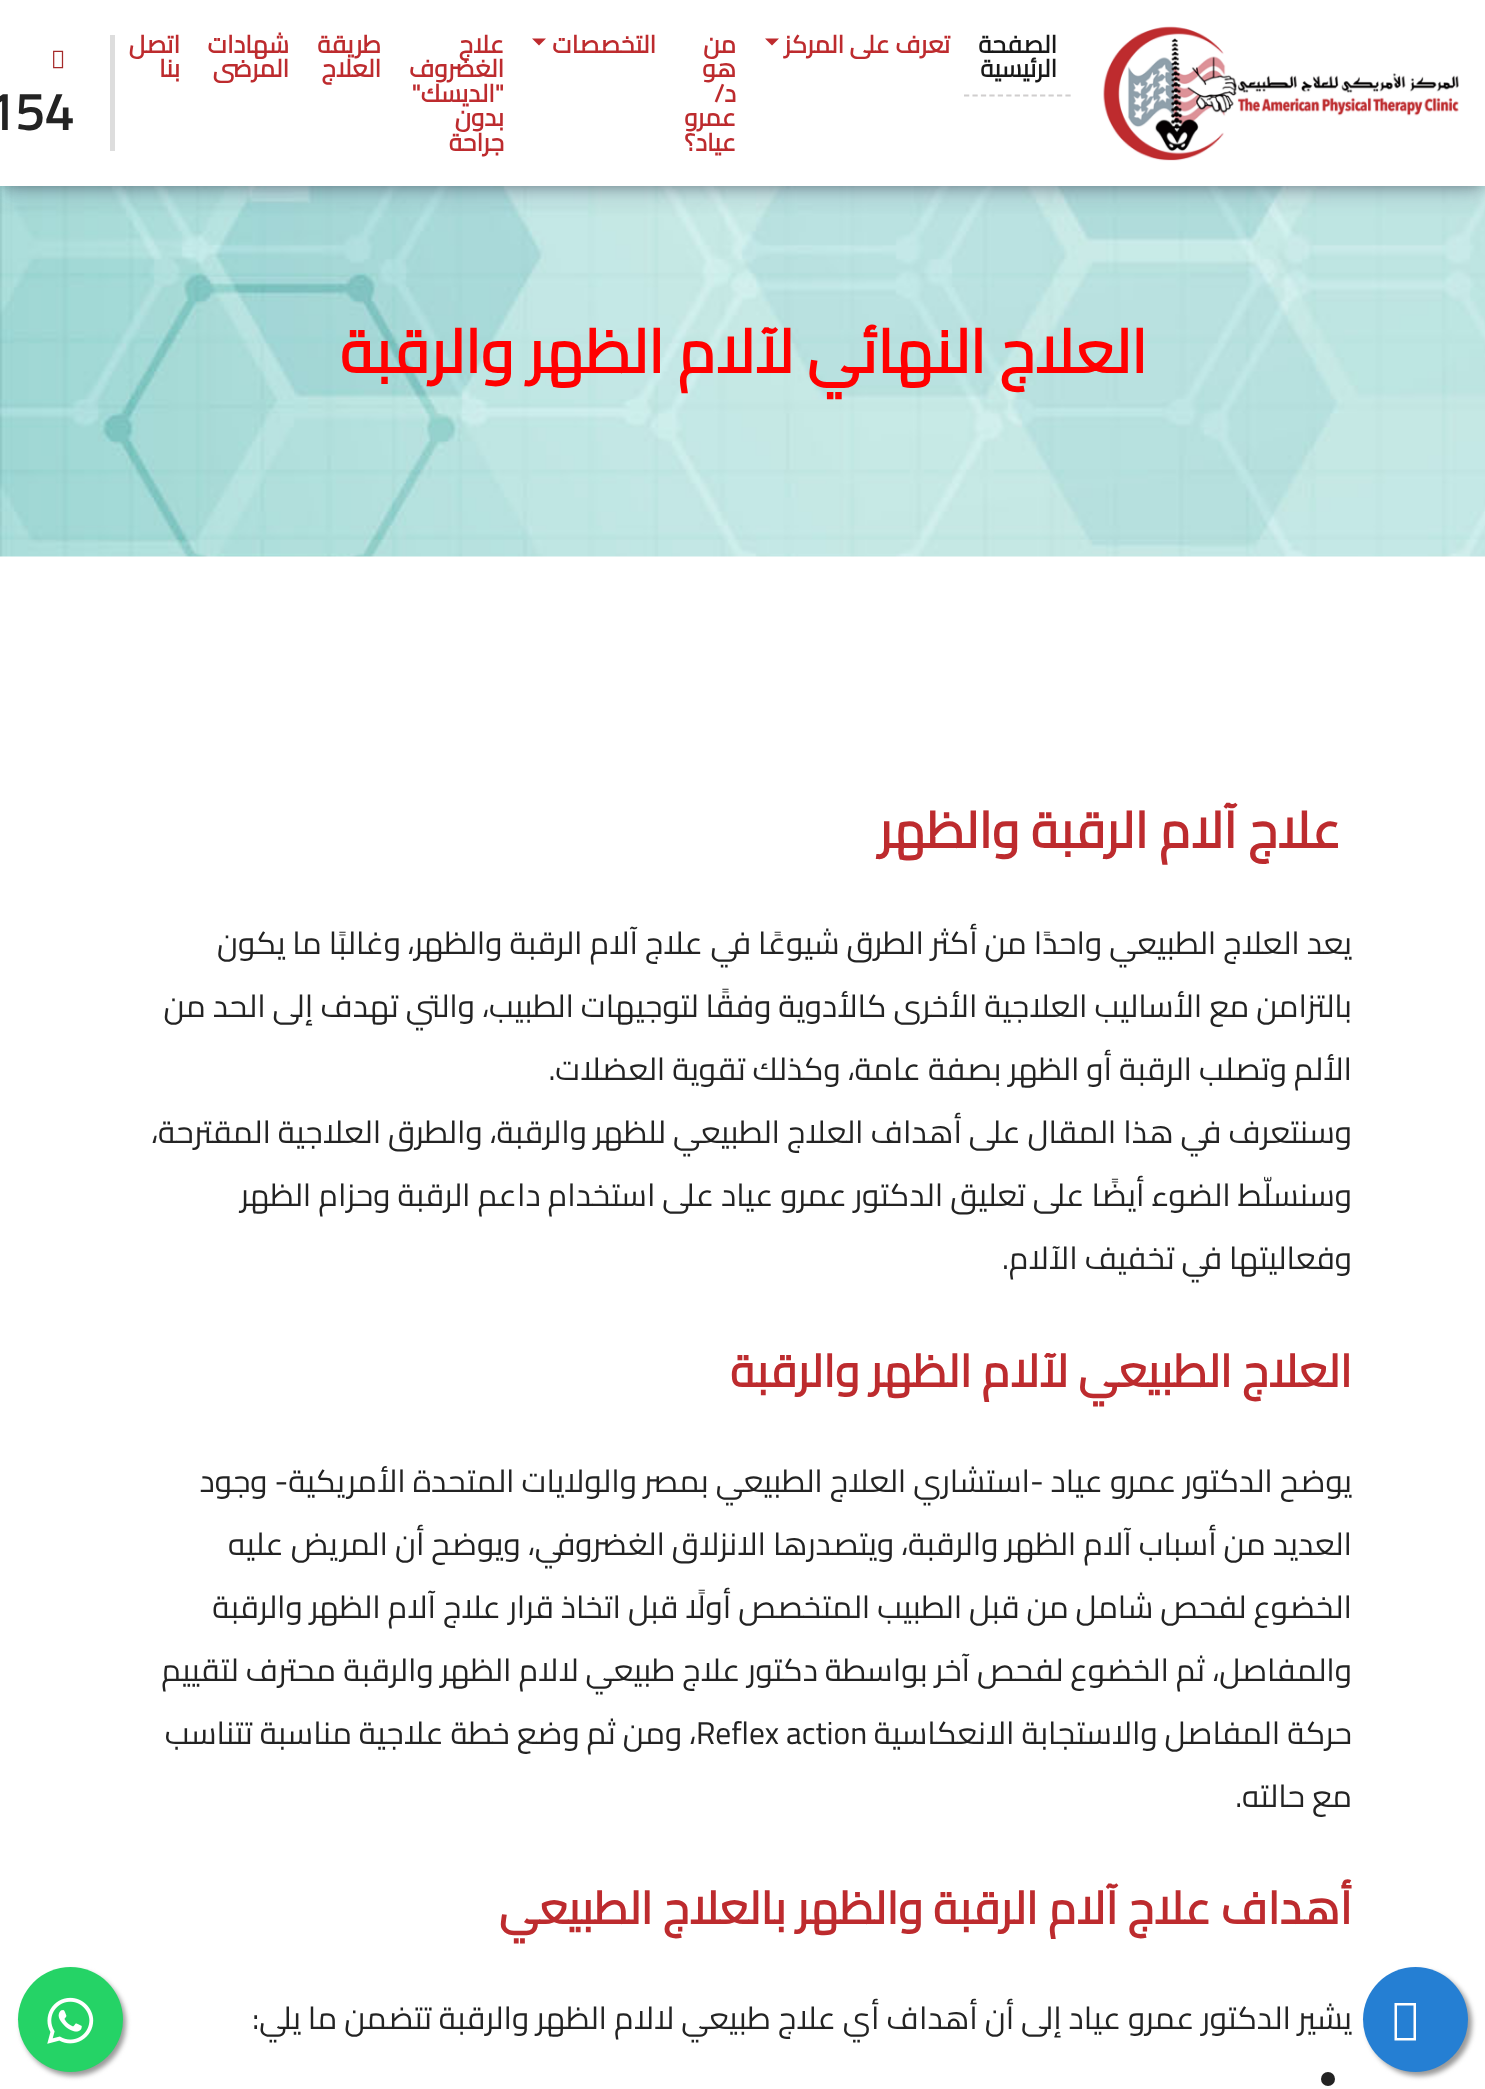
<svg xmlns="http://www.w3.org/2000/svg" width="1485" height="2089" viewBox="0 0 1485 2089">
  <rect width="100%" height="100%" fill="rgb(255,255,255)"/>
  <image x="0" y="186" width="1485" height="371" href="pic3.png"/>
  <rect x="5" y="11" width="1476" height="175" fill="rgba(0,0,0,0.3)" filter="blur(6px)"/>
  <rect x="4" y="14" width="1478" height="179" fill="rgba(50,50,93,0.25)" filter="blur(10.5px)"/>
  <rect x="0" y="0" width="1485" height="186" fill="rgb(255,255,255)"/>
  <image x="1103" y="26" width="356" height="135" href="pic1.png"/>
  <path d="M964 95.5H1071" fill="none" stroke="rgb(208,206,206)" stroke-width="1.8" stroke-dasharray="5.25 3.2"/>
  <g font-family="Cairo" font-size="24.5" font-weight="bold" direction="rtl" fill="rgb(25,25,25)">
    <text>
      <tspan x="1057" y="53">الصفحة</tspan>
      <tspan x="1057" y="77">الرئيسية</tspan>
    </text>
  </g>
  <text x="950" y="53" font-family="Cairo" font-size="24.5" font-weight="bold" direction="rtl" fill="rgb(189,43,46)">تعرف على المركز</text>
  <path d="M765 38.5H779L772 45.5Z" fill="rgb(190,43,46)"/>
  <g font-family="Cairo" font-size="24.5" font-weight="bold" direction="rtl" fill="rgb(189,43,46)">
    <text>
      <tspan x="736" y="53">من</tspan>
      <tspan x="736" y="77">هو</tspan>
      <tspan x="736" y="102">د/</tspan>
      <tspan x="736" y="126">عمرو</tspan>
      <tspan x="736" y="151">عياد؟</tspan>
    </text>
    <text x="656" y="53">التخصصات</text>
  </g>
  <path d="M532 38.5H546L539 45.5Z" fill="rgb(190,43,46)"/>
  <g font-family="Cairo" font-size="24.5" font-weight="bold" direction="rtl" fill="rgb(189,43,46)">
    <text>
      <tspan x="504" y="53">علاج</tspan>
      <tspan x="504" y="77">الغضروف</tspan>
      <tspan x="504" y="102">"الديسك"</tspan>
      <tspan x="504" y="126">بدون</tspan>
      <tspan x="504" y="151">جراحة</tspan>
    </text>
    <text>
      <tspan x="381" y="53">طريقة</tspan>
      <tspan x="381" y="77">العلاج</tspan>
    </text>
    <text>
      <tspan x="289" y="53">شهادات</tspan>
      <tspan x="289" y="77">المرضى</tspan>
    </text>
    <text>
      <tspan x="180" y="53">اتصل</tspan>
      <tspan x="180" y="77">بنا</tspan>
    </text>
  </g>
  <rect x="110" y="35" width="5" height="116" fill="rgb(221,221,221)"/>
  <image x="53" y="50" width="11" height="19" href="pic2.png"/>
  <text x="-14" y="130" font-family="Cairo" font-size="52" font-weight="bold" fill="rgb(35,35,35)">154</text>
  <rect x="1367" y="1971" width="105" height="105" rx="52.5" fill="rgb(153,153,153)" filter="blur(2.5px)"/>
  <circle cx="1415.5" cy="2019.5" r="52.5" fill="rgb(37,127,211)"/>
  <path d="M1394.5 2040.5V2003H1416V2040.5ZM1397 2038H1413.5V2005.5H1397Z" fill="rgb(255,255,255)"/>
  <text x="1147" y="373" font-family="Cairo" font-size="60.75" font-weight="bold" direction="rtl" fill="rgb(255,0,0)">العلاج النهائي لآلام الظهر والرقبة</text>
  <text x="1341" y="848" font-family="Cairo" font-size="50.5" font-weight="bold" direction="rtl" fill="rgb(189,43,46)">علاج آلام الرقبة والظهر</text>
  <g font-family="Cairo" font-size="31.5" direction="rtl" fill="rgb(35,35,35)">
    <text x="1352" y="954">يعد العلاج الطبيعي واحدًا من أكثر الطرق شيوعًا في</text>
    <text x="703" y="954">علاج آلام الرقبة والظهر،</text>
    <text x="401" y="954">وغالبًا ما يكون</text>
    <text x="1352" y="1017">بالتزامن مع الأساليب العلاجية الأخرى كالأدوية وفقًا لتوجيهات الطبيب، والتي تهدف إلى الحد من</text>
    <text x="1352" y="1080">الألم وتصلب الرقبة أو الظهر بصفة عامة، وكذلك تقوية العضلات.</text>
    <text x="1352" y="1143">وسنتعرف في هذا المقال على أهداف العلاج الطبيعي للظهر والرقبة، والطرق العلاجية المقترحة،</text>
    <text x="1352" y="1206">وسنسلّط الضوء أيضًا على تعليق الدكتور عمرو عياد على استخدام داعم الرقبة وحزام الظهر</text>
    <text x="1352" y="1269">وفعاليتها في تخفيف الآلام.</text>
  </g>
  <text x="1352" y="1387" font-family="Cairo" font-size="45.25" font-weight="bold" direction="rtl" fill="rgb(189,43,46)">العلاج الطبيعي لآلام الظهر والرقبة</text>
  <g font-family="Cairo" font-size="31.5" direction="rtl" fill="rgb(35,35,35)">
    <text x="1352" y="1492">يوضح الدكتور عمرو عياد -استشاري العلاج الطبيعي بمصر والولايات المتحدة الأمريكية- وجود</text>
    <text x="1352" y="1555">العديد من أسباب آلام الظهر والرقبة، ويتصدرها الانزلاق الغضروفي، ويوضح أن المريض عليه</text>
    <text x="1352" y="1618">الخضوع لفحص شامل من قبل الطبيب المتخصص أولًا قبل اتخاذ قرار</text>
    <text x="501" y="1618">علاج آلام الظهر والرقبة</text>
    <text x="1352" y="1681">والمفاصل،</text>
    <text x="1205" y="1681">ثم الخضوع لفحص آخر بواسطة</text>
    <text x="818" y="1681">دكتور علاج طبيعي لالام الظهر والرقبة</text>
    <text x="336" y="1681">محترف لتقييم</text>
    <text x="1352" y="1744">حركة المفاصل والاستجابة الانعكاسية</text>
  </g>
  <text x="696" y="1744" font-family="Cairo" font-size="31.5" fill="rgb(35,35,35)">Reflex action</text>
  <g font-family="Cairo" font-size="31.5" direction="rtl" fill="rgb(35,35,35)">
    <text x="696" y="1744">، ومن ثم وضع خطة علاجية مناسبة تتناسب</text>
    <text x="1352" y="1807">مع حالته.</text>
  </g>
  <g font-family="Cairo" font-size="45.25" font-weight="bold" direction="rtl" fill="rgb(189,43,46)">
    <text x="1352" y="1924">أهداف</text>
    <text x="1211" y="1924">علاج آلام الرقبة والظهر</text>
    <text x="786" y="1924">بالعلاج الطبيعي</text>
  </g>
  <g font-family="Cairo" font-size="31.5" direction="rtl" fill="rgb(35,35,35)">
    <text x="1352" y="2029">يشير الدكتور عمرو عياد إلى أن أهداف أي</text>
    <text x="836" y="2029">علاج طبيعي لالام الظهر والرقبة</text>
    <text x="432" y="2029">تتضمن ما يلي:</text>
  </g>
  <circle cx="1328" cy="2079" r="7" fill="rgb(35,35,35)"/>
  <rect x="21" y="1971" width="105" height="105" rx="52.5" fill="rgb(153,153,153)" filter="blur(2.5px)"/>
  <circle cx="70.5" cy="2019.5" r="52.5" fill="rgb(37,211,102)"/>
  <image x="47" y="1997" width="47" height="47" href="pic4.png"/>
</svg>
